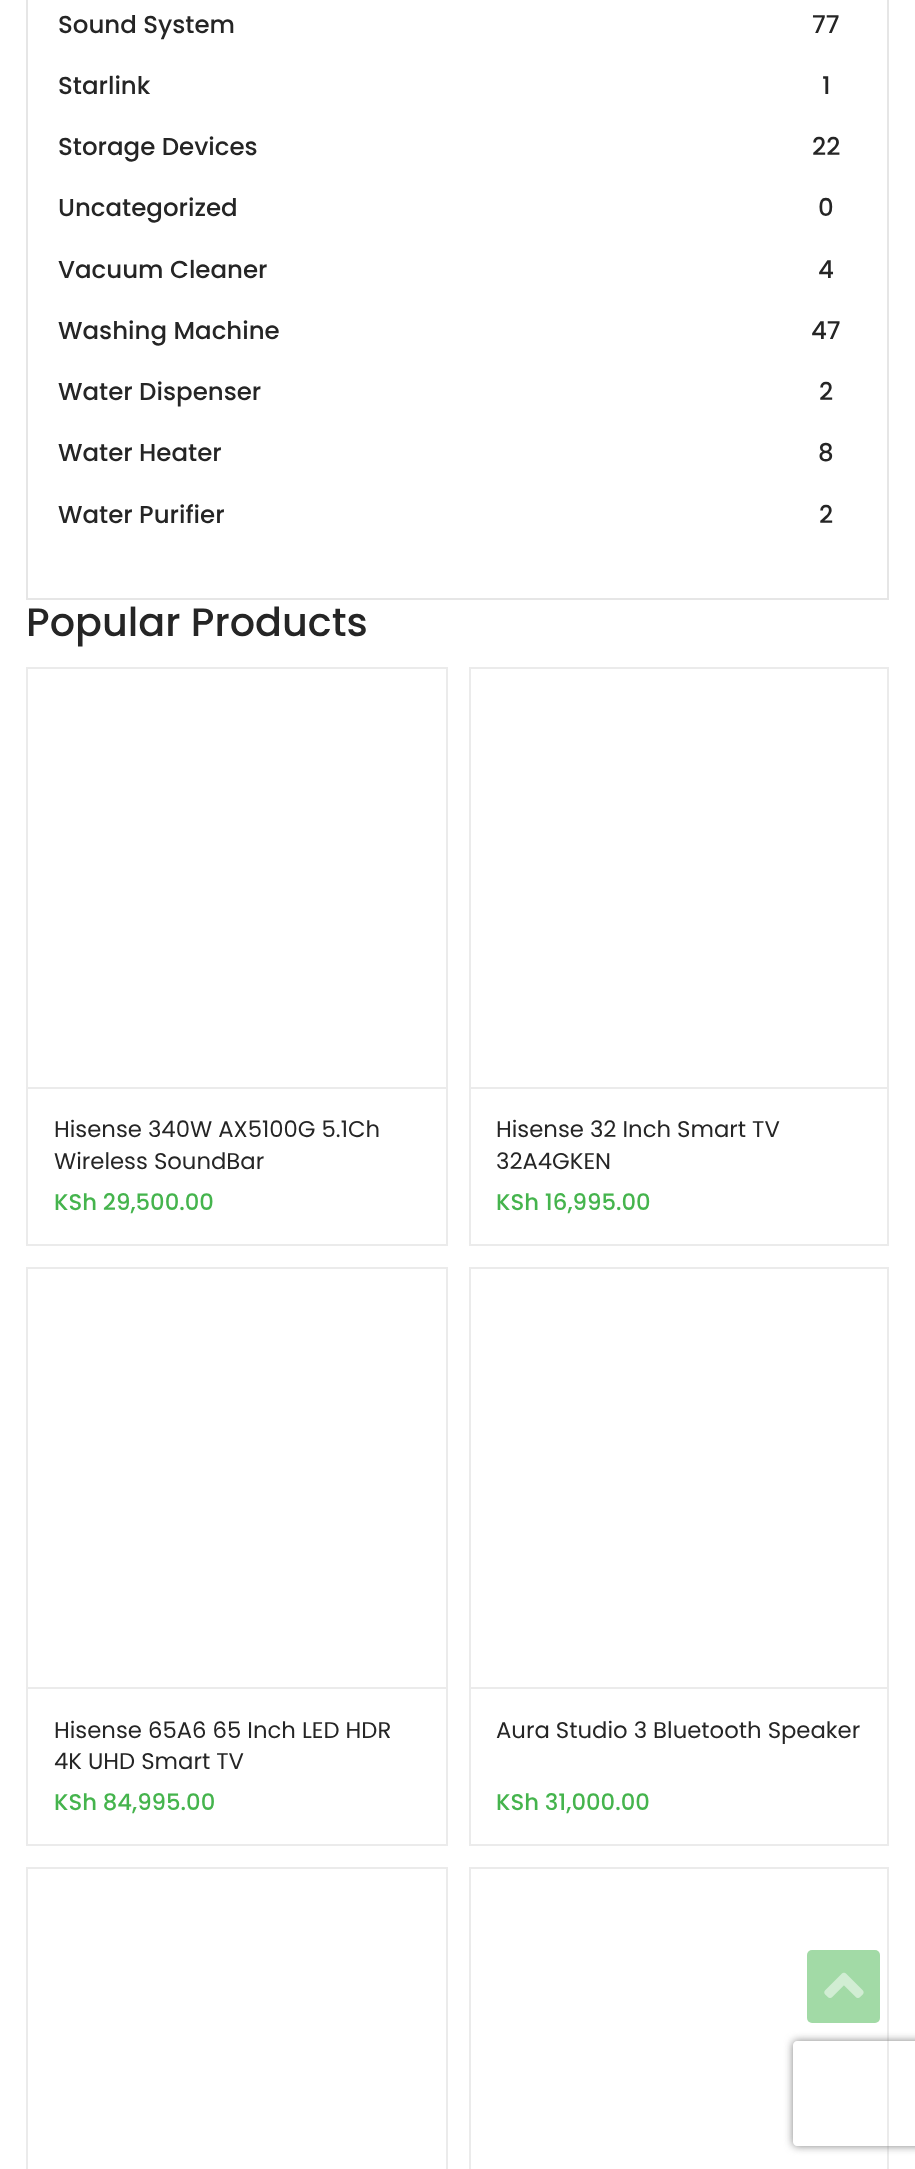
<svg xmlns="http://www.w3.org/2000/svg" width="915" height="2169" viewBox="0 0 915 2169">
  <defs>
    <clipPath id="clip1"><path d="M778 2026H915V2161H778ZM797 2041H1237C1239 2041 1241 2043 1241 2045V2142C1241 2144 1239 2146 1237 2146H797C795 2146 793 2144 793 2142V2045C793 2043 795 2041 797 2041Z" clip-rule="evenodd"/></clipPath>
  </defs>
  <rect width="100%" height="100%" fill="rgb(255,255,255)"/>
  <rect x="27" y="-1" width="861" height="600" fill="none" stroke="rgb(230,230,230)" stroke-width="2"/>
  <g font-family="Poppins" font-size="24.5" font-weight="500" fill="rgb(37,37,37)">
    <text x="58" y="33">Sound System</text>
    <text x="812" y="33">77</text>
    <text x="58" y="94">Starlink</text>
    <text x="822" y="94">1</text>
    <text x="58" y="155">Storage Devices</text>
    <text x="812" y="155">22</text>
    <text x="58" y="216">Uncategorized</text>
    <text x="818" y="216">0</text>
    <text x="58" y="278">Vacuum Cleaner</text>
    <text x="818" y="278">4</text>
    <text x="58" y="339">Washing Machine</text>
    <text x="811" y="339">47</text>
    <text x="58" y="400">Water Dispenser</text>
    <text x="819" y="400">2</text>
    <text x="58" y="461">Water Heater</text>
    <text x="818" y="461">8</text>
    <text x="58" y="523">Water Purifier</text>
    <text x="819" y="523">2</text>
  </g>
  <text x="26" y="636" font-family="Poppins" font-size="39.75" font-weight="500" fill="rgb(37,37,37)">Popular Products</text>
  <rect x="27" y="668" width="420" height="577" fill="none" stroke="rgb(235,235,235)" stroke-width="2"/>
  <rect x="28" y="1087" width="418" height="2" fill="rgb(235,235,235)"/>
  <g font-family="Poppins" font-size="22.75" fill="rgb(37,37,37)">
    <text>
      <tspan x="54" y="1137">Hisense 340W AX5100G 5.1Ch</tspan>
      <tspan x="54" y="1169">Wireless SoundBar</tspan>
    </text>
  </g>
  <text x="54" y="1210" font-family="Poppins" font-size="22.75" font-weight="500" fill="rgb(69,180,77)">KSh 29,500.00</text>
  <rect x="470" y="668" width="418" height="577" fill="none" stroke="rgb(235,235,235)" stroke-width="2"/>
  <rect x="471" y="1087" width="416" height="2" fill="rgb(235,235,235)"/>
  <g font-family="Poppins" font-size="22.75" fill="rgb(37,37,37)">
    <text>
      <tspan x="496" y="1137">Hisense 32 Inch Smart TV</tspan>
      <tspan x="496" y="1169">32A4GKEN</tspan>
    </text>
  </g>
  <text x="496" y="1210" font-family="Poppins" font-size="22.75" font-weight="500" fill="rgb(69,180,77)">KSh 16,995.00</text>
  <rect x="27" y="1268" width="420" height="577" fill="none" stroke="rgb(235,235,235)" stroke-width="2"/>
  <rect x="28" y="1687" width="418" height="2" fill="rgb(235,235,235)"/>
  <g font-family="Poppins" font-size="22.75" fill="rgb(37,37,37)">
    <text>
      <tspan x="54" y="1738">Hisense 65A6 65 Inch LED HDR</tspan>
      <tspan x="54" y="1769">4K UHD Smart TV</tspan>
    </text>
  </g>
  <text x="54" y="1810" font-family="Poppins" font-size="22.75" font-weight="500" fill="rgb(69,180,77)">KSh 84,995.00</text>
  <rect x="470" y="1268" width="418" height="577" fill="none" stroke="rgb(235,235,235)" stroke-width="2"/>
  <rect x="471" y="1687" width="416" height="2" fill="rgb(235,235,235)"/>
  <text x="496" y="1738" font-family="Poppins" font-size="22.75" fill="rgb(37,37,37)">Aura Studio 3 Bluetooth Speaker</text>
  <text x="496" y="1810" font-family="Poppins" font-size="22.75" font-weight="500" fill="rgb(69,180,77)">KSh 31,000.00</text>
  <rect x="27" y="1868" width="420" height="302" fill="none" stroke="rgb(235,235,235)" stroke-width="2"/>
  <rect x="470" y="1868" width="418" height="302" fill="none" stroke="rgb(235,235,235)" stroke-width="2"/>
  <rect x="807" y="1950" width="73" height="73" rx="5" fill="rgb(162,218,166)"/>
  <image x="824" y="1972" width="40" height="26" href="pic1.png"/>
  <g clip-path="url(#clip1)">
    <rect x="793" y="2041" width="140" height="105" rx="4" fill="rgb(128,128,128)" filter="blur(4.5px)"/>
  </g>
</svg>
